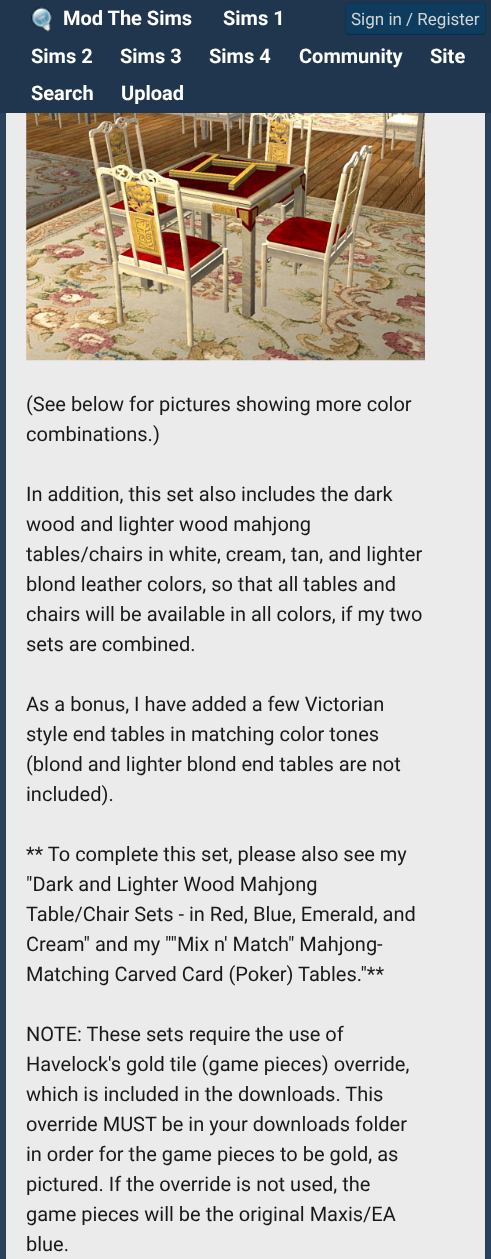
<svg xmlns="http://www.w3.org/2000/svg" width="491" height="1259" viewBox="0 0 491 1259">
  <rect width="100%" height="100%" fill="rgb(44,66,92)"/>
  <rect x="5.5" y="-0.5" width="480" height="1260" fill="none" stroke="rgb(41,60,84)"/>
  <rect x="0" y="0" width="491" height="113" fill="rgb(32,54,79)"/>
  <g font-family="Roboto" font-size="20" font-weight="bold" fill="rgb(255,255,255)">
    <text x="223" y="25">Sims 1</text>
    <text x="31" y="63">Sims 2</text>
    <text x="120" y="63">Sims 3</text>
    <text x="209" y="63">Sims 4</text>
    <text x="299" y="63">Community</text>
    <text x="430" y="63">Site</text>
    <text x="31" y="100">Search</text>
    <text x="121" y="100">Upload</text>
  </g>
  <image x="31" y="7" width="22" height="25" href="pic1.png"/>
  <text x="63" y="25" font-family="Roboto" font-size="20" font-weight="bold" fill="rgb(255,255,255)">Mod The Sims</text>
  <rect x="345" y="3" width="141" height="32" rx="4" fill="rgb(14,60,94)"/>
  <path d="M484.5 33.5L482.5 34.5H349L346.5 33.5" fill="none" stroke="rgba(0,0,0,0.25)" stroke-width="1.2"/>
  <path d="M346.5 33.5C344.5 31.5 345.5 21.5 345.5 19V10.5C345.5 8 345 3 349 3H482.5C486.5 3 485.5 8 485.5 10.5V19C485.5 21.5 487 31.5 484.5 33.5" fill="none" stroke="rgba(0,0,0,0.1)" stroke-width="1.2"/>
  <text x="351" y="25" font-family="Roboto" font-size="17" fill="rgb(212,212,212)">Sign in / Register</text>
  <rect x="6" y="113" width="479" height="1146" fill="rgb(235,235,235)"/>
  <image x="26" y="113" width="399" height="248" href="pic2.png"/>
  <g font-family="Roboto" font-size="20" fill="rgb(25,25,25)">
    <text>
      <tspan x="26" y="411">(See below for pictures showing more color</tspan>
      <tspan x="26" y="441">combinations.)</tspan>
    </text>
    <text>
      <tspan x="26" y="501">In addition, this set also includes the dark</tspan>
      <tspan x="26" y="531">wood and lighter wood mahjong</tspan>
      <tspan x="26" y="561">tables/chairs in white, cream, tan, and lighter</tspan>
      <tspan x="26" y="591">blond leather colors, so that all tables and</tspan>
      <tspan x="26" y="621">chairs will be available in all colors, if my two</tspan>
      <tspan x="26" y="651">sets are combined.</tspan>
    </text>
    <text>
      <tspan x="26" y="711">As a bonus, I have added a few Victorian</tspan>
      <tspan x="26" y="741">style end tables in matching color tones</tspan>
      <tspan x="26" y="771">(blond and lighter blond end tables are not</tspan>
      <tspan x="26" y="801">included).</tspan>
    </text>
    <text>
      <tspan x="26" y="861">** To complete this set, please also see my</tspan>
      <tspan x="26" y="891">"Dark and Lighter Wood Mahjong</tspan>
      <tspan x="26" y="921">Table/Chair Sets - in Red, Blue, Emerald, and</tspan>
      <tspan x="26" y="951">Cream" and my ""Mix n' Match" Mahjong-</tspan>
      <tspan x="26" y="981">Matching Carved Card (Poker) Tables."**</tspan>
    </text>
    <text>
      <tspan x="26" y="1041">NOTE: These sets require the use of</tspan>
      <tspan x="26" y="1071">Havelock's gold tile (game pieces) override,</tspan>
      <tspan x="26" y="1101">which is included in the downloads. This</tspan>
      <tspan x="26" y="1131">override MUST be in your downloads folder</tspan>
      <tspan x="26" y="1161">in order for the game pieces to be gold, as</tspan>
      <tspan x="26" y="1191">pictured. If the override is not used, the</tspan>
      <tspan x="26" y="1221">game pieces will be the original Maxis/EA</tspan>
      <tspan x="26" y="1251">blue.</tspan>
    </text>
  </g>
</svg>
